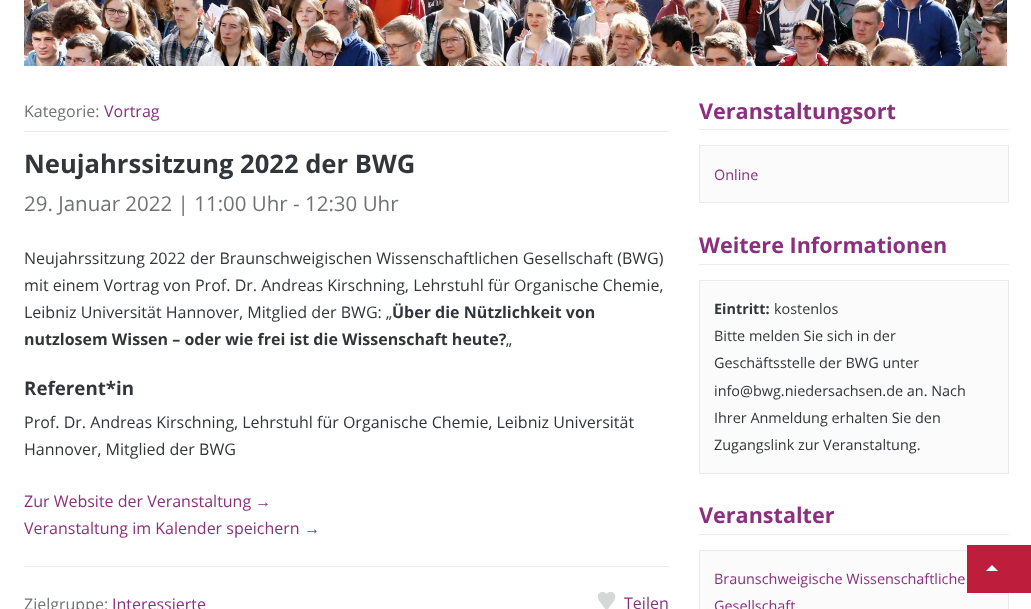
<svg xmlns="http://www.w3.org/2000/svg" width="1031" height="609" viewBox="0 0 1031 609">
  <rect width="100%" height="100%" fill="rgb(255,255,255)"/>
  <image x="24" y="0" width="983" height="66" href="pic1.png"/>
  <rect x="24" y="131" width="645" height="1" fill="rgb(235,235,235)"/>
  <text x="24" y="117" font-family="Open Sans" font-size="16" fill="rgb(112,114,116)">Kategorie:</text>
  <text x="104" y="117" font-family="Open Sans" font-size="16" fill="rgb(138,48,127)">Vortrag</text>
  <text x="24" y="173" font-family="Open Sans" font-size="25.6" font-weight="bold" fill="rgb(50,53,57)">Neujahrssitzung 2022 der BWG</text>
  <text x="24" y="211" font-family="Open Sans" font-size="20.5" fill="rgb(112,114,116)">29. Januar 2022 | 11:00 Uhr - 12:30 Uhr</text>
  <g font-family="Open Sans" font-size="16" fill="rgb(50,53,57)">
    <text>
      <tspan x="24" y="264">Neujahrssitzung 2022 der Braunschweigischen Wissenschaftlichen Gesellschaft (BWG)</tspan>
      <tspan x="24" y="291">mit einem Vortrag von Prof. Dr. Andreas Kirschning, Lehrstuhl für Organische Chemie,</tspan>
      <tspan x="24" y="318">Leibniz Universität Hannover, Mitglied der BWG: „</tspan>
    </text>
  </g>
  <g font-family="Open Sans" font-size="16" font-weight="bold" fill="rgb(50,53,57)">
    <text x="392" y="318">Über die Nützlichkeit von</text>
    <text x="24" y="345">nutzlosem Wissen – oder wie frei ist die Wissenschaft heute?</text>
  </g>
  <text x="506" y="345" font-family="Open Sans" font-size="16" fill="rgb(50,53,57)">„</text>
  <text x="24" y="395" font-family="Open Sans" font-size="18.75" font-weight="bold" fill="rgb(50,53,57)">Referent*in</text>
  <g font-family="Open Sans" font-size="16" fill="rgb(50,53,57)">
    <text>
      <tspan x="24" y="428">Prof. Dr. Andreas Kirschning, Lehrstuhl für Organische Chemie, Leibniz Universität</tspan>
      <tspan x="24" y="455">Hannover, Mitglied der BWG</tspan>
    </text>
  </g>
  <text x="24" y="507" font-family="Open Sans" font-size="16" fill="rgb(138,48,127)">Zur Website der Veranstaltung</text>
  <text x="255" y="507" font-family="Liberation Sans" font-size="16" fill="rgb(138,48,127)">→</text>
  <text x="24" y="534" font-family="Open Sans" font-size="16" fill="rgb(138,48,127)">Veranstaltung im Kalender speichern</text>
  <text x="304" y="534" font-family="Liberation Sans" font-size="16" fill="rgb(138,48,127)">→</text>
  <rect x="24" y="566" width="645" height="1" fill="rgb(235,235,235)"/>
  <text x="24" y="610" font-family="Open Sans" font-size="16" fill="rgb(112,114,116)">Zielgruppe:</text>
  <text x="112" y="610" font-family="Open Sans" font-size="16" fill="rgb(138,48,127)">Interessierte</text>
  <image x="598" y="591" width="18" height="18" href="pic2.png"/>
  <text x="624" y="609" font-family="Open Sans" font-size="16" fill="rgb(138,48,127)">Teilen</text>
  <rect x="699" y="129" width="310" height="1" fill="rgb(235,235,235)"/>
  <text x="699" y="119" font-family="Open Sans" font-size="21.6" font-weight="bold" fill="rgb(138,48,127)">Veranstaltungsort</text>
  <rect x="699.5" y="145.5" width="309" height="57" fill="rgb(251,251,251)" stroke="rgb(235,235,235)"/>
  <text x="714" y="180" font-family="Open Sans" font-size="14.4" fill="rgb(138,48,127)">Online</text>
  <rect x="699" y="264" width="310" height="1" fill="rgb(235,235,235)"/>
  <text x="699" y="253" font-family="Open Sans" font-size="21.6" font-weight="bold" fill="rgb(138,48,127)">Weitere Informationen</text>
  <rect x="699.5" y="280.5" width="309" height="193" fill="rgb(251,251,251)" stroke="rgb(235,235,235)"/>
  <text x="714" y="314" font-family="Open Sans" font-size="14.4" font-weight="bold" fill="rgb(50,53,57)">Eintritt:</text>
  <g font-family="Open Sans" font-size="14.4" fill="rgb(50,53,57)">
    <text x="774" y="314">kostenlos</text>
    <text>
      <tspan x="714" y="341">Bitte melden Sie sich in der</tspan>
      <tspan x="714" y="368">Geschäftsstelle der BWG unter</tspan>
      <tspan x="714" y="396">info@bwg.niedersachsen.de an. Nach</tspan>
      <tspan x="714" y="423">Ihrer Anmeldung erhalten Sie den</tspan>
      <tspan x="714" y="450">Zugangslink zur Veranstaltung.</tspan>
    </text>
  </g>
  <rect x="699" y="534" width="310" height="1" fill="rgb(235,235,235)"/>
  <text x="699" y="523" font-family="Open Sans" font-size="21.6" font-weight="bold" fill="rgb(138,48,127)">Veranstalter</text>
  <rect x="699.5" y="550.5" width="309" height="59" fill="rgb(251,251,251)" stroke="rgb(235,235,235)"/>
  <g font-family="Open Sans" font-size="14.4" fill="rgb(138,48,127)">
    <text>
      <tspan x="714" y="584">Braunschweigische Wissenschaftliche</tspan>
      <tspan x="714" y="611">Gesellschaft</tspan>
    </text>
  </g>
  <rect x="967" y="545" width="64" height="48" fill="rgb(190,30,60)"/>
  <path d="M998 571H986L992 565Z" fill="rgb(255,255,255)"/>
</svg>
